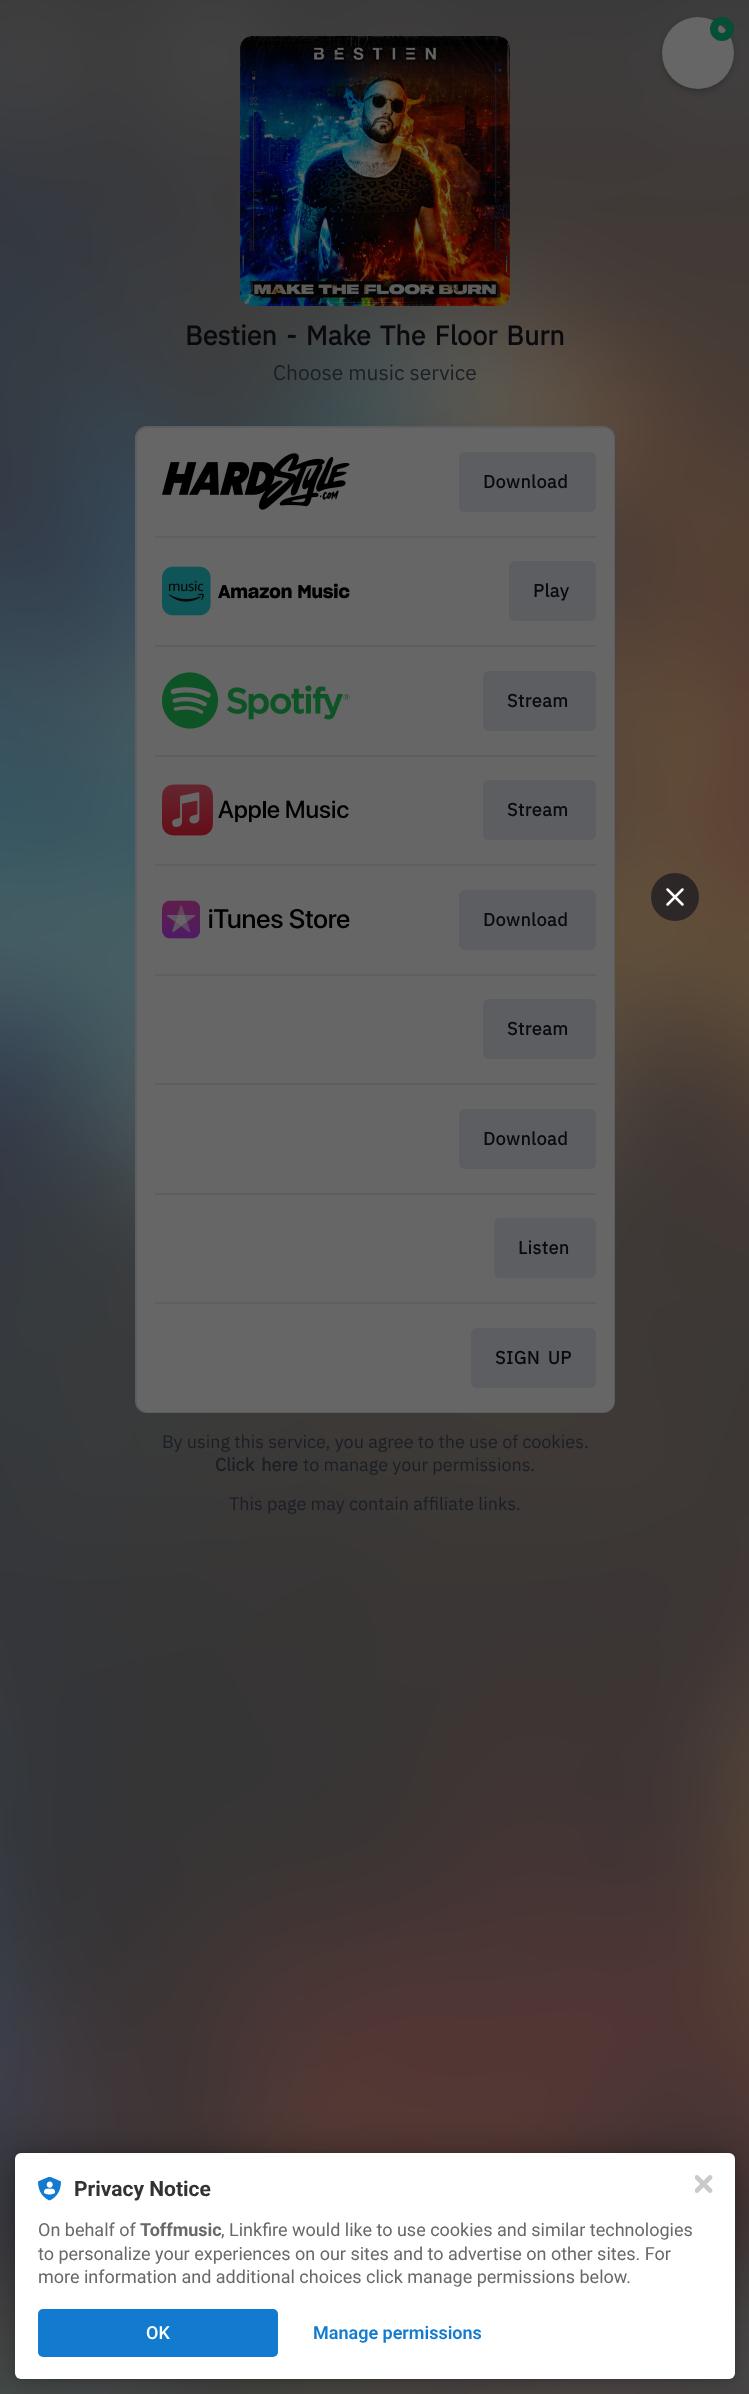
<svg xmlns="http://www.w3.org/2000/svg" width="749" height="2394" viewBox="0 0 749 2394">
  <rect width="100%" height="100%" fill="rgb(102,102,102)"/>
  <image x="0" y="0" width="749" height="2394" href="pic1.png"/>
  <image x="240" y="36" width="270" height="270" href="pic2.png"/>
  <text x="185" y="345" word-spacing="2.75" font-family="IBM Plex Sans" font-size="27" font-weight="bold" fill="rgb(10,9,13)">Bestien - Make The Floor Burn</text>
  <text x="273" y="380" font-family="IBM Plex Sans" font-size="21" fill="rgb(28,30,38)">Choose music service</text>
  <rect x="136" y="427" width="478" height="985" rx="11" fill="rgb(102,102,102)" stroke="rgb(92,94,97)" stroke-width="2"/>
  <rect x="137" y="428" width="477" height="984" rx="11" fill="rgb(102,102,102)"/>
  <image x="162" y="453" width="188" height="57" href="pic3.png"/>
  <rect x="459" y="452" width="137" height="60" rx="6" fill="rgb(92,94,97)"/>
  <text x="483" y="488" font-family="IBM Plex Sans" font-size="18" font-weight="bold" letter-spacing="0.5" fill="rgb(10,9,13)">Download</text>
  <rect x="155" y="536" width="441" height="2" fill="rgb(92,94,97)"/>
  <image x="162" y="566" width="188" height="50" href="pic4.png"/>
  <rect x="509" y="561" width="87" height="60" rx="6" fill="rgb(92,94,97)"/>
  <text x="533" y="597" font-family="IBM Plex Sans" font-size="18" font-weight="bold" letter-spacing="0.5" fill="rgb(10,9,13)">Play</text>
  <rect x="155" y="645" width="441" height="2" fill="rgb(92,94,97)"/>
  <image x="162" y="672" width="188" height="57" href="pic5.png"/>
  <rect x="483" y="671" width="113" height="60" rx="6" fill="rgb(92,94,97)"/>
  <text x="507" y="707" font-family="IBM Plex Sans" font-size="18" font-weight="bold" letter-spacing="0.5" fill="rgb(10,9,13)">Stream</text>
  <rect x="155" y="755" width="441" height="2" fill="rgb(92,94,97)"/>
  <image x="162" y="784" width="187" height="52" href="pic6.png"/>
  <rect x="483" y="780" width="113" height="60" rx="6" fill="rgb(92,94,97)"/>
  <text x="507" y="816" font-family="IBM Plex Sans" font-size="18" font-weight="bold" letter-spacing="0.5" fill="rgb(10,9,13)">Stream</text>
  <rect x="155" y="864" width="441" height="2" fill="rgb(92,94,97)"/>
  <image x="162" y="900" width="188" height="39" href="pic7.png"/>
  <rect x="459" y="890" width="137" height="60" rx="6" fill="rgb(92,94,97)"/>
  <text x="483" y="926" font-family="IBM Plex Sans" font-size="18" font-weight="bold" letter-spacing="0.5" fill="rgb(10,9,13)">Download</text>
  <rect x="155" y="974" width="441" height="2" fill="rgb(92,94,97)"/>
  <rect x="483" y="999" width="113" height="60" rx="6" fill="rgb(92,94,97)"/>
  <text x="507" y="1035" font-family="IBM Plex Sans" font-size="18" font-weight="bold" letter-spacing="0.5" fill="rgb(10,9,13)">Stream</text>
  <rect x="155" y="1083" width="441" height="2" fill="rgb(92,94,97)"/>
  <rect x="459" y="1109" width="137" height="60" rx="6" fill="rgb(92,94,97)"/>
  <text x="483" y="1145" font-family="IBM Plex Sans" font-size="18" font-weight="bold" letter-spacing="0.5" fill="rgb(10,9,13)">Download</text>
  <rect x="155" y="1193" width="441" height="2" fill="rgb(92,94,97)"/>
  <rect x="494" y="1218" width="102" height="60" rx="6" fill="rgb(92,94,97)"/>
  <text x="518" y="1254" font-family="IBM Plex Sans" font-size="18" font-weight="bold" letter-spacing="0.5" fill="rgb(10,9,13)">Listen</text>
  <rect x="155" y="1302" width="441" height="2" fill="rgb(92,94,97)"/>
  <rect x="471" y="1328" width="125" height="60" rx="6" fill="rgb(92,94,97)"/>
  <text x="495" y="1364" word-spacing="3" font-family="IBM Plex Sans" font-size="18" font-weight="bold" letter-spacing="0.5" fill="rgb(10,9,13)">SIGN UP</text>
  <text x="162" y="1448" font-family="IBM Plex Sans" font-size="18" fill="rgb(28,30,38)">By using this service, you agree to the use of cookies.</text>
  <text x="215" y="1471" word-spacing="3" font-family="IBM Plex Sans" font-size="18" font-weight="bold" fill="rgb(28,30,38)">Click here</text>
  <g font-family="IBM Plex Sans" font-size="18" fill="rgb(28,30,38)">
    <text x="303" y="1471">to manage your permissions.</text>
    <text x="229" y="1510">This page may contain affiliate links.</text>
  </g>
  <rect x="662" y="20" width="72" height="72" rx="36" fill="rgba(0,0,0,0.2)" filter="blur(3px)"/>
  <circle cx="698" cy="53" r="36" fill="rgb(102,102,102)"/>
  <circle cx="722" cy="29" r="8" fill="none" stroke="rgb(5,79,54)" stroke-width="8"/>
  <circle cx="675" cy="897" r="24" fill="rgba(24,23,33,0.7)"/>
  <path d="M667.5 889.5L682.5 904.5M667.5 904.5L682.5 889.5" fill="none" stroke="rgb(255,255,255)" stroke-width="2.5" stroke-linecap="round" stroke-linejoin="round"/>
  <rect x="15" y="2153" width="720" height="226" rx="6" fill="rgba(0,0,0,0.12)" filter="blur(3px)"/>
  <rect x="15" y="2153" width="720" height="226" rx="6" fill="rgba(0,0,0,0.3)" filter="blur(18px)"/>
  <rect x="15" y="2153" width="720" height="226" rx="6" fill="rgb(255,255,255)"/>
  <image x="38" y="2177" width="23" height="24" href="pic8.png"/>
  <text x="74" y="2196" font-family="Roboto" font-size="21" font-weight="bold" fill="rgb(50,50,50)">Privacy Notice</text>
  <text x="38" y="2236" font-family="Roboto" font-size="18" fill="rgb(104,104,104)">On behalf of</text>
  <text x="140" y="2236" font-family="Roboto" font-size="18" font-weight="bold" fill="rgb(104,104,104)">Toffmusic</text>
  <g font-family="Roboto" font-size="18" fill="rgb(104,104,104)">
    <text x="221" y="2236">, Linkfire would like to use cookies and similar technologies</text>
    <text>
      <tspan x="38" y="2260">to personalize your experiences on our sites and to advertise on other sites. For</tspan>
      <tspan x="38" y="2283">more information and additional choices click manage permissions below.</tspan>
    </text>
  </g>
  <rect x="38" y="2309" width="240" height="48" rx="5" fill="rgb(19,123,207)"/>
  <text x="146" y="2339" font-family="Roboto" font-size="18" font-weight="500" fill="rgb(255,255,255)">OK</text>
  <text x="313" y="2339" font-family="Roboto" font-size="18" font-weight="600" fill="rgb(19,123,207)">Manage permissions</text>
  <image x="695" y="2175" width="18" height="18" href="pic9.png"/>
</svg>
